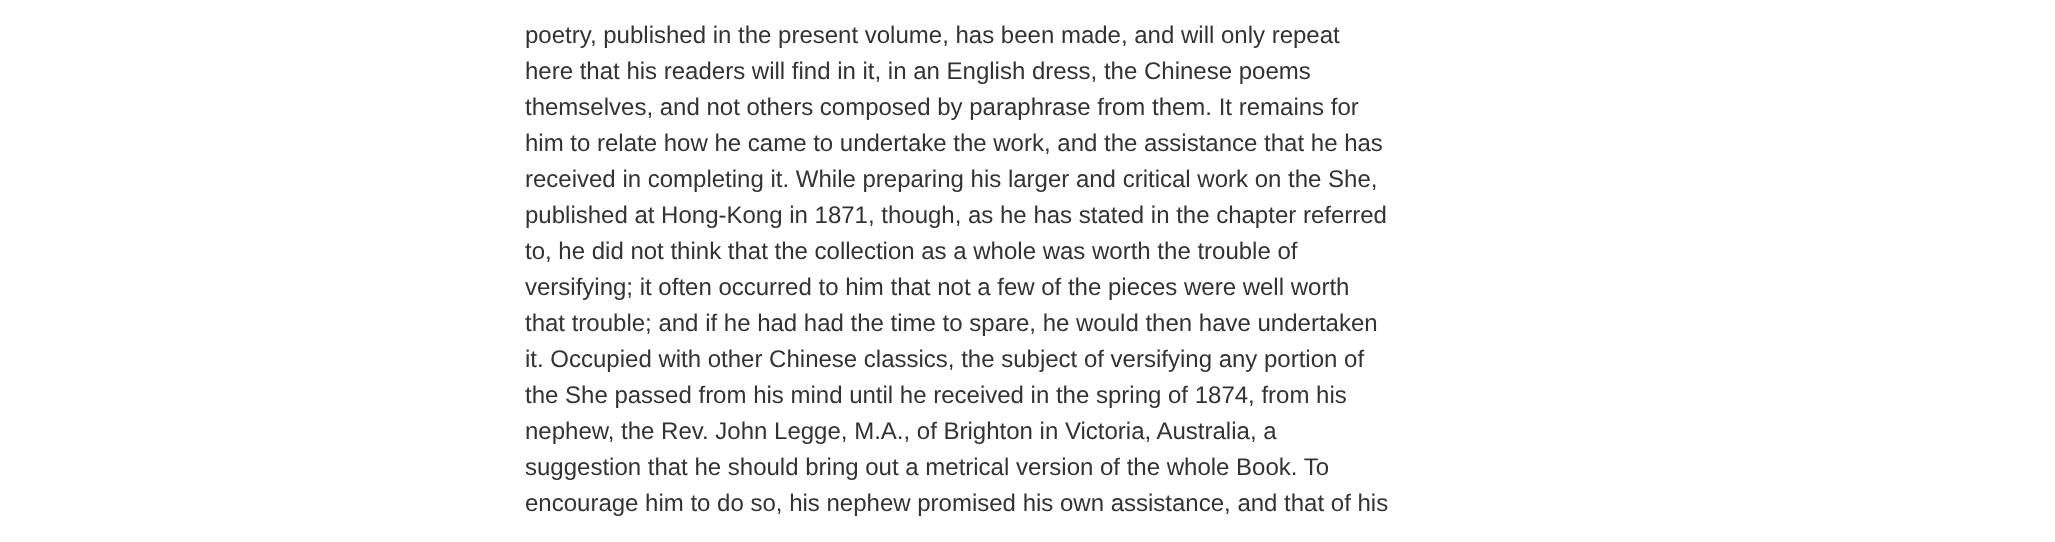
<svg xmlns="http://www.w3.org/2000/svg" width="2055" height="542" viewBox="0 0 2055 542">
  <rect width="100%" height="100%" fill="rgb(255,255,255)"/>
  <g font-family="Liberation Sans" font-size="24" fill="rgb(51,51,51)">
    <text>
      <tspan x="525" y="43">poetry, published in the present volume, has been made, and will only repeat</tspan>
      <tspan x="525" y="79">here that his readers will find in it, in an English dress, the Chinese poems</tspan>
      <tspan x="525" y="115">themselves, and not others composed by paraphrase from them. It remains for</tspan>
      <tspan x="525" y="151">him to relate how he came to undertake the work, and the assistance that he has</tspan>
      <tspan x="525" y="187">received in completing it. While preparing his larger and critical work on the She,</tspan>
      <tspan x="525" y="223">published at Hong-Kong in 1871, though, as he has stated in the chapter referred</tspan>
      <tspan x="525" y="259">to, he did not think that the collection as a whole was worth the trouble of</tspan>
      <tspan x="525" y="295">versifying; it often occurred to him that not a few of the pieces were well worth</tspan>
      <tspan x="525" y="331">that trouble; and if he had had the time to spare, he would then have undertaken</tspan>
      <tspan x="525" y="367">it. Occupied with other Chinese classics, the subject of versifying any portion of</tspan>
      <tspan x="525" y="403">the She passed from his mind until he received in the spring of 1874, from his</tspan>
      <tspan x="525" y="439">nephew, the Rev. John Legge, M.A., of Brighton in Victoria, Australia, a</tspan>
      <tspan x="525" y="475">suggestion that he should bring out a metrical version of the whole Book. To</tspan>
      <tspan x="525" y="511">encourage him to do so, his nephew promised his own assistance, and that of his</tspan>
    </text>
  </g>
</svg>
